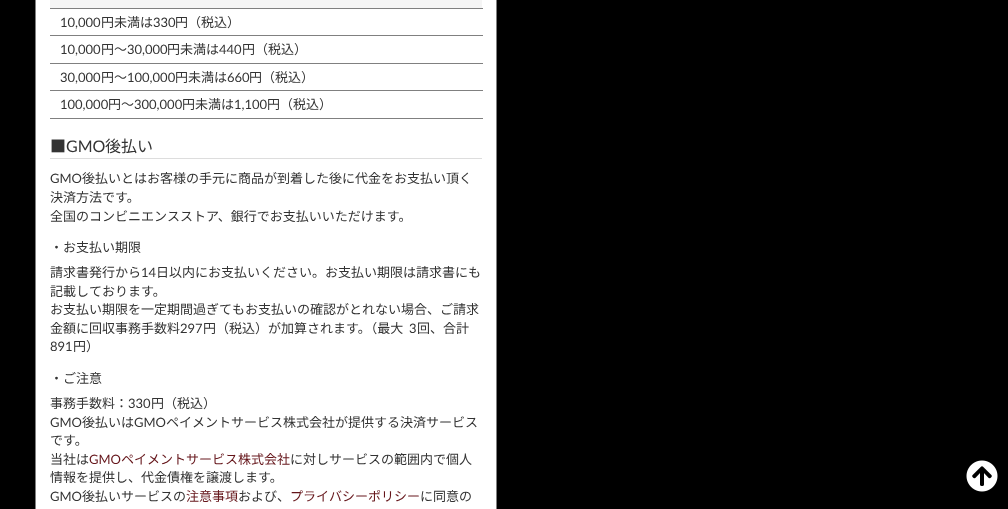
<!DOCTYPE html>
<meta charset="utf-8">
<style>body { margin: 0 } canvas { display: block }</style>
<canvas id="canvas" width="1008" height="509"></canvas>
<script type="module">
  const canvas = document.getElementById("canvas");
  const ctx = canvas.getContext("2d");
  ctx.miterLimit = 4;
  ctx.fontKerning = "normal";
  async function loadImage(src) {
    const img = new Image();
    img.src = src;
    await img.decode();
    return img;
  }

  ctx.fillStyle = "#000000";
  ctx.fillRect(0, 0, 1008, 509);
  ctx.fillStyle = "#ffffff";
  ctx.beginPath();
  ctx.rect(35.5, -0.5, 461, 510);
  ctx.fill();
  ctx.strokeStyle = "#808080";
  ctx.stroke();
  ctx.fillStyle = "#f5f5f5";
  ctx.fillRect(50, 0, 432, 8);
  ctx.fillStyle = "#808080";
  ctx.fillRect(50, 8, 433, 1);
  ctx.font = "13px Lato";
  ctx.fillStyle = "#333333";
  ctx.fillText("10,000", 60, 27);
  ctx.font = "13px Noto Sans JP";
  ctx.fillText("円未満は", 101, 27);
  ctx.font = "13px Lato";
  ctx.fillText("330", 153, 27);
  ctx.font = "13px Noto Sans JP";
  ctx.fillText("円（税込）", 175, 27);
  ctx.fillStyle = "#808080";
  ctx.fillRect(50, 35, 433, 1);
  ctx.font = "13px Lato";
  ctx.fillStyle = "#333333";
  ctx.fillText("10,000", 60, 54);
  ctx.font = "13px Noto Sans JP";
  ctx.fillText("円～", 101, 54);
  ctx.font = "13px Lato";
  ctx.fillText("30,000", 127, 54);
  ctx.font = "13px Noto Sans JP";
  ctx.fillText("円未満は", 167, 54);
  ctx.font = "13px Lato";
  ctx.fillText("440", 219, 54);
  ctx.font = "13px Noto Sans JP";
  ctx.fillText("円（税込）", 242, 54);
  ctx.fillStyle = "#808080";
  ctx.fillRect(50, 63, 433, 1);
  ctx.font = "13px Lato";
  ctx.fillStyle = "#333333";
  ctx.fillText("30,000", 60, 82);
  ctx.font = "13px Noto Sans JP";
  ctx.fillText("円～", 101, 82);
  ctx.font = "13px Lato";
  ctx.fillText("100,000", 127, 82);
  ctx.font = "13px Noto Sans JP";
  ctx.fillText("円未満は", 175, 82);
  ctx.font = "13px Lato";
  ctx.fillText("660", 227, 82);
  ctx.font = "13px Noto Sans JP";
  ctx.fillText("円（税込）", 249, 82);
  ctx.fillStyle = "#808080";
  ctx.fillRect(50, 90, 433, 1);
  ctx.fillRect(50, 118, 433, 1);
  ctx.font = "13px Lato";
  ctx.fillStyle = "#333333";
  ctx.fillText("100,000", 60, 109);
  ctx.font = "13px Noto Sans JP";
  ctx.fillText("円～", 108, 109);
  ctx.font = "13px Lato";
  ctx.fillText("300,000", 134, 109);
  ctx.font = "13px Noto Sans JP";
  ctx.fillText("円未満は", 182, 109);
  ctx.font = "13px Lato";
  ctx.fillText("1,100", 234, 109);
  ctx.font = "13px Noto Sans JP";
  ctx.fillText("円（税込）", 267, 109);
  ctx.fillStyle = "#dddddd";
  ctx.fillRect(50, 158, 432, 1);
  ctx.font = "16px Noto Sans JP";
  ctx.fillStyle = "#333333";
  ctx.fillText("■", 50, 152);
  ctx.font = "16px Lato";
  ctx.fillText("GMO", 66, 152);
  ctx.font = "16px Noto Sans JP";
  ctx.fillText("後払い", 105, 152);
  ctx.font = "13px Lato";
  ctx.fillText("GMO", 50, 183);
  ctx.font = "13px Noto Sans JP";
  ctx.fillText("後払いとはお客様の手元に商品が到着した後に代金をお支払い頂く", 82, 183);
  ctx.fillText("決済方法です。", 50, 202);
  ctx.fillText("全国のコンビニエンスストア、銀行でお支払いいただけます。", 50, 221);
  ctx.fillText("・お支払い期限", 50, 252);
  ctx.fillText("請求書発行から", 50, 277);
  ctx.font = "13px Lato";
  ctx.fillText("14", 141, 277);
  ctx.font = "13px Noto Sans JP";
  ctx.fillText("日以内にお支払いください。お支払い期限は請求書にも", 156, 277);
  ctx.fillText("記載しております。", 50, 296);
  ctx.fillText("お支払い期限を一定期間過ぎてもお支払いの確認がとれない場合、ご請求", 50, 314);
  ctx.fillText("金額に回収事務手数料", 50, 333);
  ctx.font = "13px Lato";
  ctx.fillText("297", 180, 333);
  ctx.font = "13px Noto Sans JP";
  ctx.fillText("円（税込）が加算されます。（最大", 203, 333);
  ctx.font = "13px Lato";
  ctx.fillText("3", 409, 333);
  ctx.font = "13px Noto Sans JP";
  ctx.fillText("回、合計", 417, 333);
  ctx.font = "13px Lato";
  ctx.fillText("891", 50, 351);
  ctx.font = "13px Noto Sans JP";
  ctx.fillText("円）", 73, 351);
  ctx.fillText("・ご注意", 50, 383);
  ctx.fillText("事務手数料：", 50, 408);
  ctx.font = "13px Lato";
  ctx.fillText("330", 128, 408);
  ctx.font = "13px Noto Sans JP";
  ctx.fillText("円（税込）", 151, 408);
  ctx.font = "13px Lato";
  ctx.fillText("GMO", 50, 427);
  ctx.font = "13px Noto Sans JP";
  ctx.fillText("後払いは", 82, 427);
  ctx.font = "13px Lato";
  ctx.fillText("GMO", 134, 427);
  ctx.font = "13px Noto Sans JP";
  ctx.fillText("ペイメントサービス株式会社が提供する決済サービス", 166, 427);
  ctx.fillText("です。", 50, 445);
  ctx.fillText("当社は", 50, 464);
  ctx.font = "13px Lato";
  ctx.fillStyle = "#641419";
  ctx.fillText("GMO", 89, 464);
  ctx.font = "13px Noto Sans JP";
  ctx.fillText("ペイメントサービス株式会社", 121, 464);
  ctx.fillStyle = "#333333";
  ctx.fillText("に対しサービスの範囲内で個人", 290, 464);
  ctx.fillText("情報を提供し、代金債権を譲渡します。", 50, 482);
  ctx.font = "13px Lato";
  ctx.fillText("GMO", 50, 501);
  ctx.font = "13px Noto Sans JP";
  ctx.fillText("後払いサービスの", 82, 501);
  ctx.fillStyle = "#641419";
  ctx.fillText("注意事項", 186, 501);
  ctx.fillStyle = "#333333";
  ctx.fillText("および、", 238, 501);
  ctx.fillStyle = "#641419";
  ctx.fillText("プライバシーポリシー", 290, 501);
  ctx.fillStyle = "#333333";
  ctx.fillText("に同意の", 420, 501);
  ctx.drawImage(await loadImage("img1.png"), 966, 460, 32, 32);
</script>
